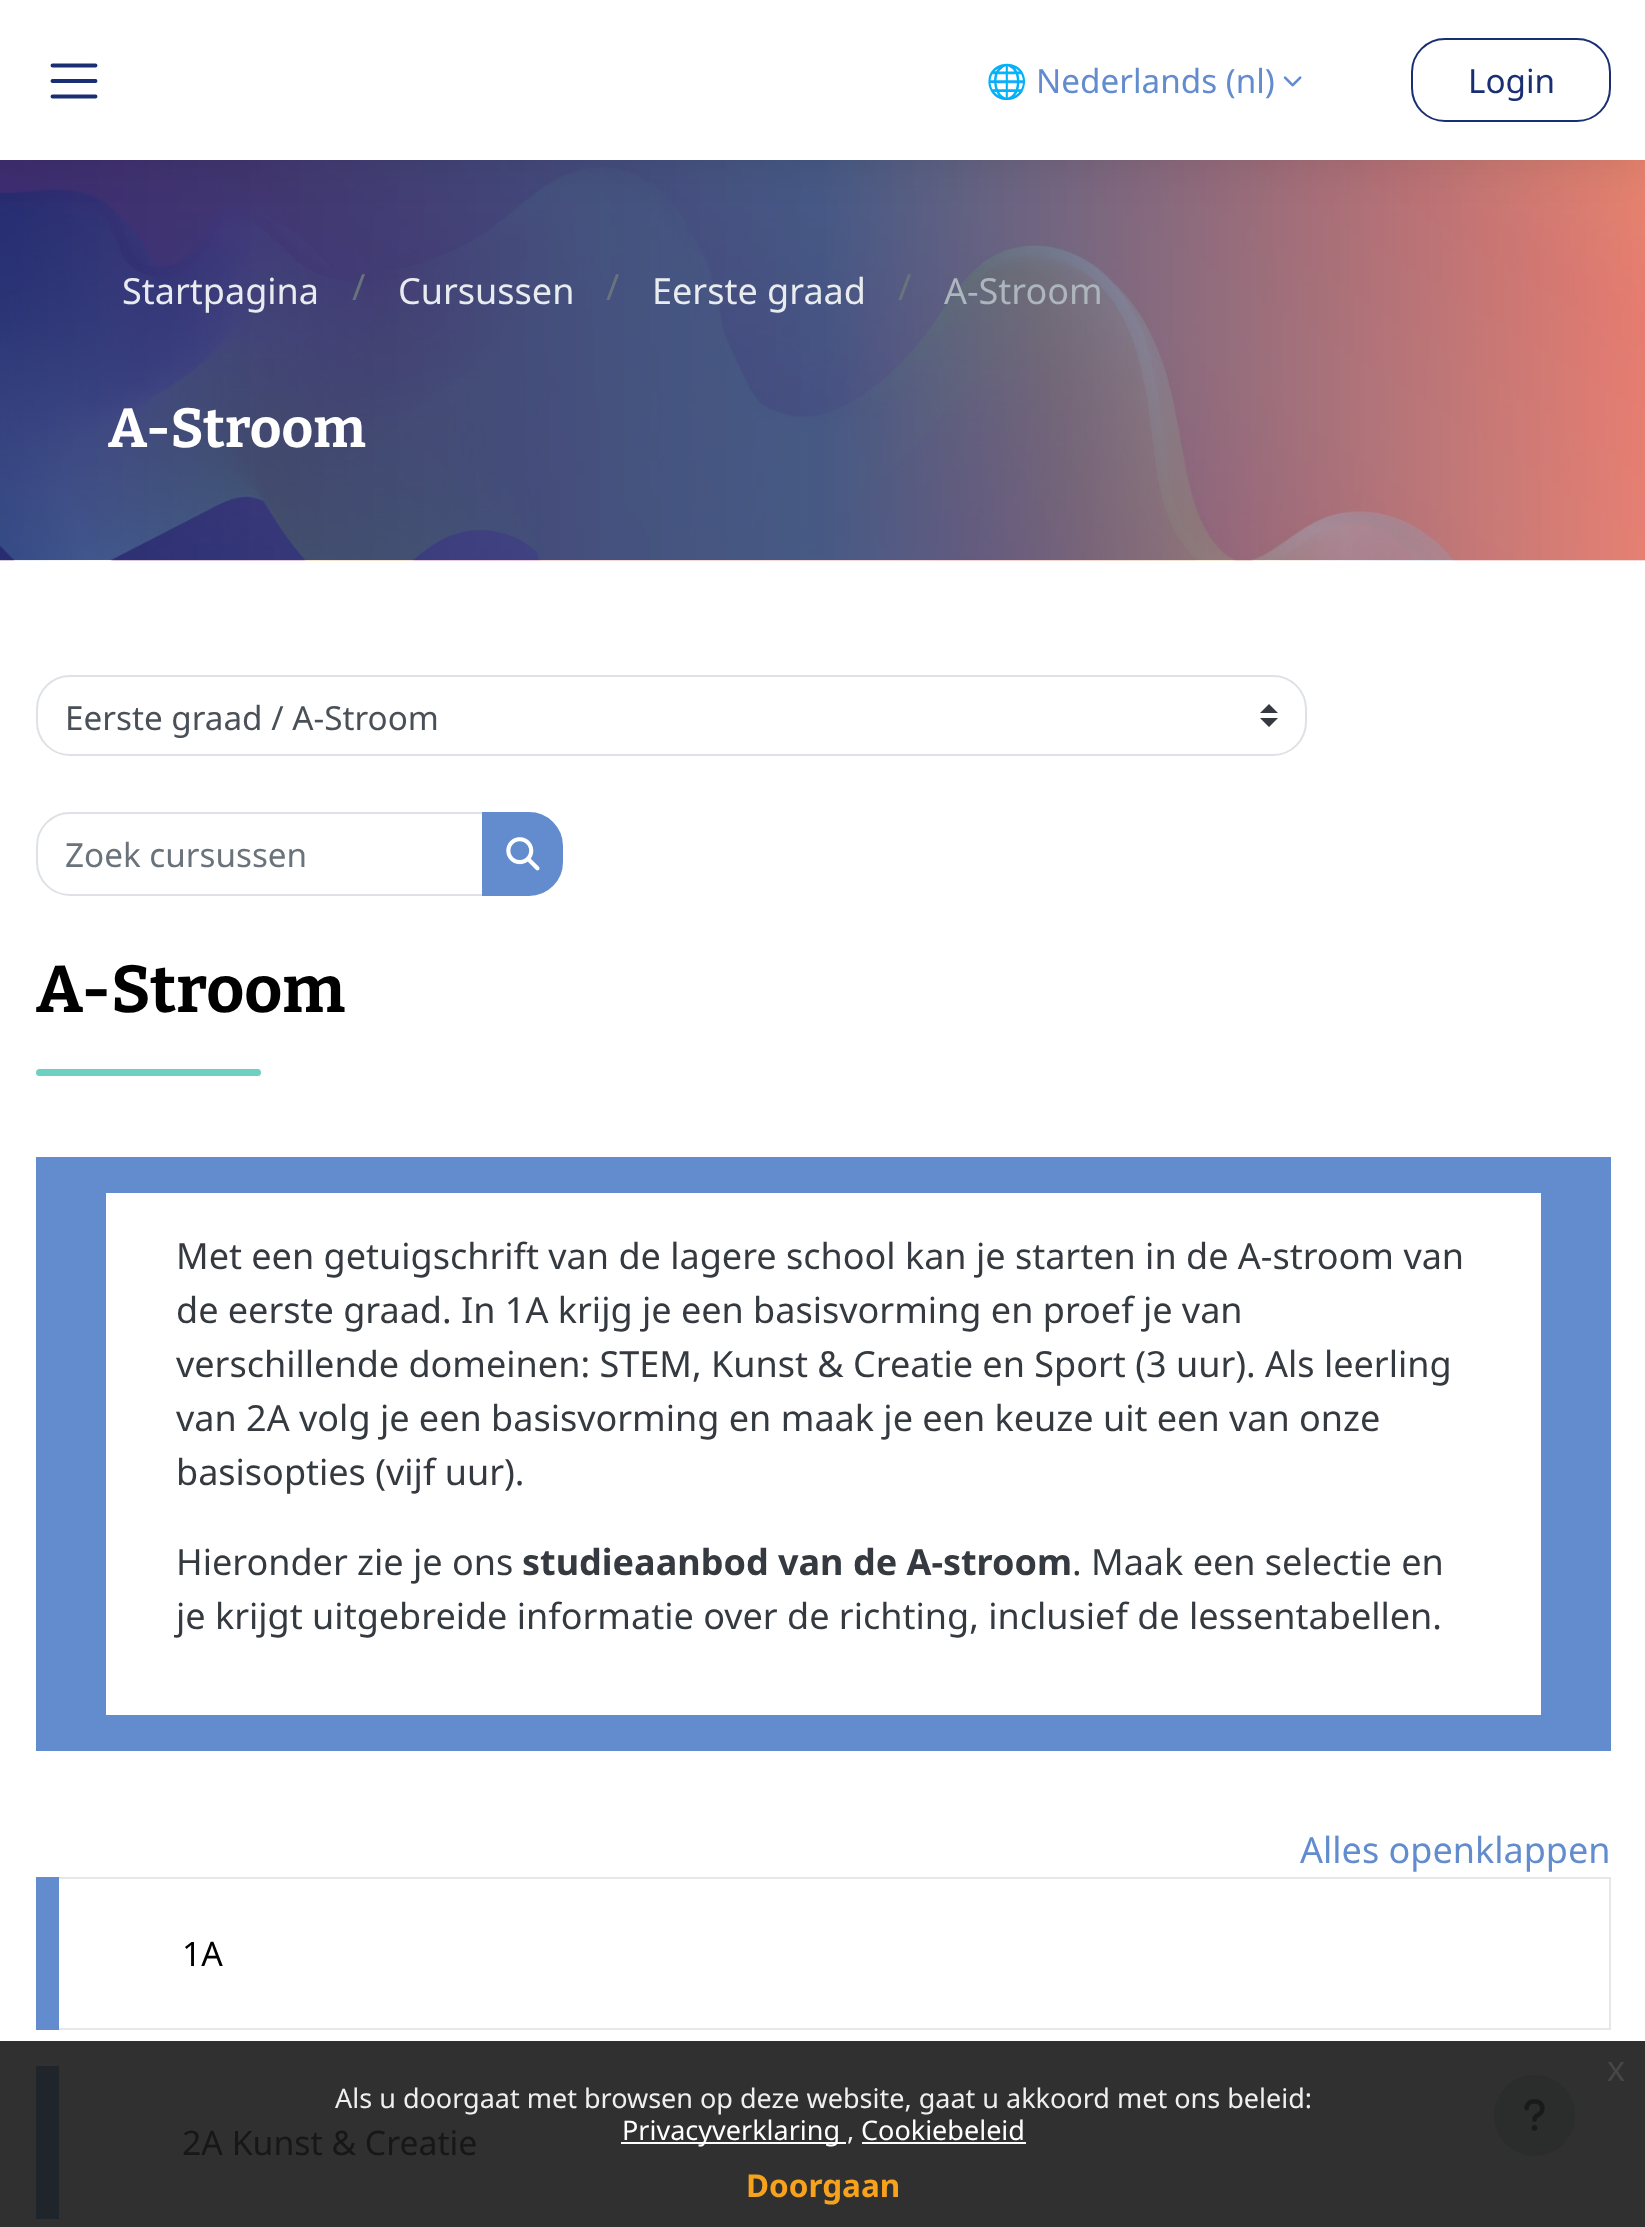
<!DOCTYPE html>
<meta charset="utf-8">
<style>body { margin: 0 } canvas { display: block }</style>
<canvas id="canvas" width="1645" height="2227"></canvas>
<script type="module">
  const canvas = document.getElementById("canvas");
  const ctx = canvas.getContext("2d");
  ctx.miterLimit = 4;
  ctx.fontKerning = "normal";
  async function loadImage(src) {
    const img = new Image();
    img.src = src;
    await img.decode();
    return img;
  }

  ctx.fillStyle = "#ffffff";
  ctx.fillRect(0, 0, 1645, 2227);
  ctx.fillStyle = "#303030";
  ctx.fillRect(0, 2041, 1645, 186);
  ctx.drawImage(await loadImage("img2.png"), 0, 160, 1645, 401);
  ctx.fillStyle = "rgba(0, 0, 0, 0.1)";
  ctx.filter = "blur(22.5px)";
  ctx.beginPath();
  ctx.rect(0, 0, 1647, 160);
  ctx.fill();
  ctx.filter = "none";
  ctx.fillStyle = "#ffffff";
  ctx.fillRect(0, 0, 1645, 160);
  ctx.beginPath();
  ctx.moveTo(52.5, 65.5);
  ctx.lineTo(95.5, 65.5);
  ctx.moveTo(52.5, 81);
  ctx.lineTo(95.5, 81);
  ctx.moveTo(52.5, 96.5);
  ctx.lineTo(95.5, 96.5);
  ctx.strokeStyle = "#1a2f72";
  ctx.lineWidth = 3.9;
  ctx.lineCap = "round";
  ctx.stroke();
  ctx.font = "33.25px Noto Color Emoji";
  ctx.fillStyle = "#628cce";
  ctx.fillText("🌐", 986, 93);
  ctx.font = "33.25px Noto Sans";
  ctx.fillText("Nederlands (nl)", 1036, 93);
  ctx.drawImage(await loadImage("img1.png"), 1283, 76, 19, 11);
  ctx.beginPath();
  ctx.roundRect(1412, 39, 198, 82, 33);
  ctx.lineWidth = 2;
  ctx.stroke();
  ctx.fillStyle = "#1a2f72";
  ctx.fillText("Login", 1468, 93);
  ctx.font = "36px Noto Sans";
  ctx.fillStyle = "#e9ecef";
  ctx.fillText("Startpagina", 122, 304);
  ctx.fillStyle = "#6a737b";
  ctx.fillText("/", 352, 300);
  ctx.fillStyle = "#e9ecef";
  ctx.fillText("Cursussen", 398, 304);
  ctx.fillStyle = "#6a737b";
  ctx.fillText("/", 606, 300);
  ctx.fillStyle = "#e9ecef";
  ctx.fillText("Eerste graad", 652, 304);
  ctx.fillStyle = "#6a737b";
  ctx.fillText("/", 898, 300);
  ctx.fillStyle = "#adb5bd";
  ctx.fillText("A-Stroom", 944, 304);
  ctx.font = "bold 55px Bitter";
  ctx.fillStyle = "#ffffff";
  ctx.fillText("A-Stroom", 108, 447);
  ctx.fillStyle = "#343a40";
  ctx.beginPath();
  ctx.moveTo(1269, 704);
  ctx.lineTo(1260, 713);
  ctx.lineTo(1278, 713);
  ctx.closePath();
  ctx.moveTo(1269, 727);
  ctx.lineTo(1260, 718);
  ctx.lineTo(1278, 718);
  ctx.closePath();
  ctx.fill();
  ctx.beginPath();
  ctx.roundRect(37, 676, 1269, 79, 33);
  ctx.strokeStyle = "#dee2e6";
  ctx.stroke();
  ctx.font = "33.25px Noto Sans";
  ctx.fillStyle = "#495057";
  ctx.fillText("Eerste graad / A-Stroom", 65, 730);
  ctx.beginPath();
  ctx.roundRect(37, 813, 446, 82, [33, 0, 0, 33]);
  ctx.stroke();
  ctx.fillStyle = "#6a737b";
  ctx.fillText("Zoek cursussen", 65, 867);
  ctx.fillStyle = "#628cce";
  ctx.beginPath();
  ctx.roundRect(483, 813, 79, 82, [0, 33, 33, 0]);
  ctx.fill();
  ctx.strokeStyle = "#628cce";
  ctx.stroke();
  ctx.drawImage(await loadImage("img3.png"), 506, 837, 34, 34);
  ctx.font = "bold 66px Bitter";
  ctx.fillStyle = "#000000";
  ctx.fillText("A-Stroom", 36, 1012);
  ctx.fillStyle = "#6dd0c0";
  ctx.beginPath();
  ctx.roundRect(36, 1069, 225, 7, 3.5);
  ctx.fill();
  ctx.fillStyle = "#628cce";
  ctx.fillRect(36, 1157, 1575, 594);
  ctx.fillStyle = "#ffffff";
  ctx.fillRect(106, 1193, 1435, 522);
  ctx.font = "36px Noto Sans";
  ctx.fillStyle = "#343a40";
  ctx.fillText("Met een getuigschrift van de lagere school kan je starten in de A-stroom van", 176, 1269);
  ctx.fillText("de eerste graad. In 1A krijg je een basisvorming en proef je van", 176, 1323);
  ctx.fillText("verschillende domeinen: STEM, Kunst & Creatie en Sport (3 uur). Als leerling", 176, 1377);
  ctx.fillText("van 2A volg je een basisvorming en maak je een keuze uit een van onze", 176, 1431);
  ctx.fillText("basisopties (vijf uur).", 176, 1485);
  ctx.fillText("Hieronder zie je ons", 176, 1575);
  ctx.font = "bold 36px Noto Sans";
  ctx.fillText("studieaanbod van de A-stroom", 522, 1575);
  ctx.font = "36px Noto Sans";
  ctx.fillText(". Maak een selectie en", 1072, 1575);
  ctx.fillText("je krijgt uitgebreide informatie over de richting, inclusief de lessentabellen.", 176, 1629);
  ctx.fillStyle = "#628cce";
  ctx.fillText("Alles openklappen", 1300, 1863);
  ctx.strokeStyle = "#e7e7e7";
  ctx.strokeRect(37, 1878, 1573, 151);
  ctx.fillRect(36, 1877, 23, 153);
  ctx.font = "33.75px Noto Sans";
  ctx.fillStyle = "#000000";
  ctx.fillText("1A", 182, 1966);
  ctx.fillStyle = "#20252b";
  ctx.fillRect(36, 2066, 23, 153);
  ctx.fillStyle = "#171717";
  ctx.fillText("2A Kunst & Creatie", 182, 2155);
  ctx.fillStyle = "#2b2c2c";
  ctx.beginPath();
  ctx.arc(1534.5, 2115.5, 40.5, 0, Math.PI * 2);
  ctx.fill();
  ctx.drawImage(await loadImage("img4.png"), 1524, 2099, 21, 32);
  ctx.font = "36px Liberation Sans";
  ctx.fillStyle = "#474747";
  ctx.fillText("x", 1607, 2081);
  ctx.font = "27px Noto Sans";
  ctx.fillStyle = "#efefef";
  ctx.fillText("Als u doorgaat met browsen op deze website, gaat u akkoord met ons beleid:", 335, 2108);
  ctx.fillStyle = "#ffffff";
  ctx.fillRect(621, 2142, 225, 2);
  ctx.fillText("Privacyverklaring", 622, 2140);
  ctx.fillStyle = "#efefef";
  ctx.fillText(",", 847, 2140);
  ctx.fillStyle = "#ffffff";
  ctx.fillRect(862, 2142, 164, 2);
  ctx.fillText("Cookiebeleid", 861, 2140);
  ctx.font = "bold 31.5px Noto Sans";
  ctx.fillStyle = "#f6a21d";
  ctx.fillText("Doorgaan", 746, 2197);
</script>
